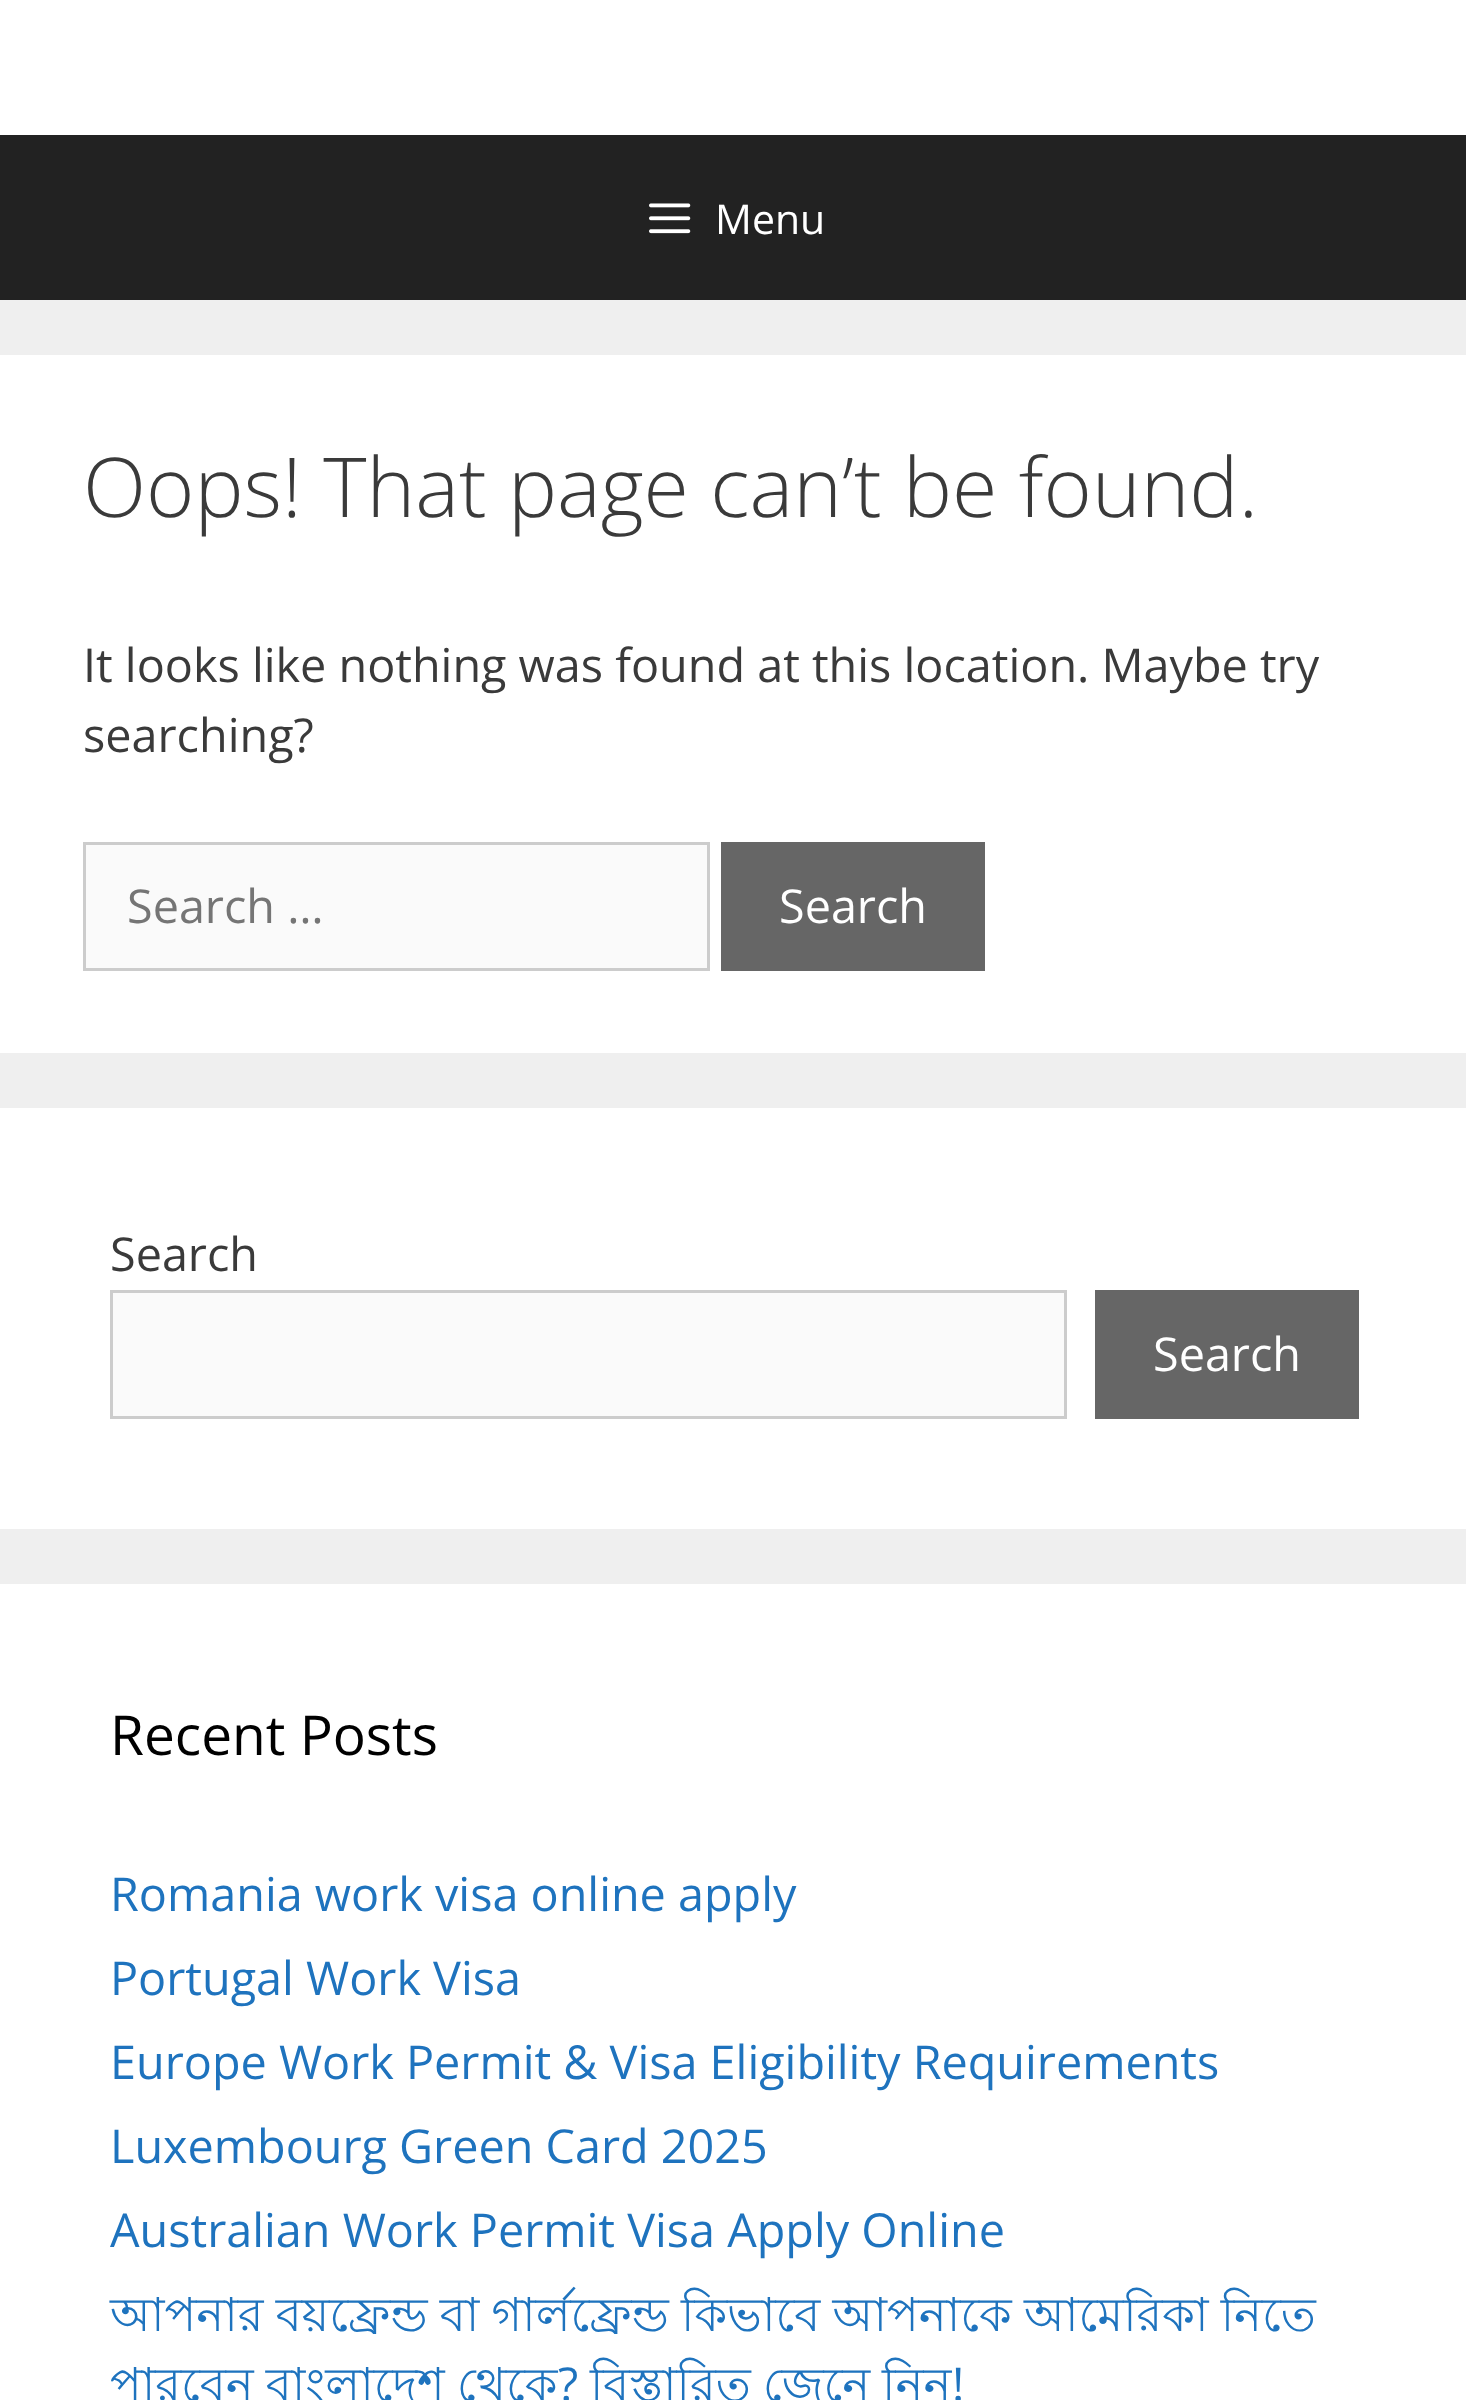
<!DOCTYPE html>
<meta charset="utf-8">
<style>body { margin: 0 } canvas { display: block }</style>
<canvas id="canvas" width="1466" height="2400"></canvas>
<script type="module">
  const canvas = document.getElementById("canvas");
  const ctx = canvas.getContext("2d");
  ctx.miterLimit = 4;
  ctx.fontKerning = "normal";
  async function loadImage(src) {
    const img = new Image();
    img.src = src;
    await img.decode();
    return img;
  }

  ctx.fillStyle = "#efefef";
  ctx.fillRect(0, 0, 1466, 2400);
  ctx.fillStyle = "#ffffff";
  ctx.fillRect(0, 0, 1466, 135);
  ctx.fillStyle = "#222222";
  ctx.fillRect(0, 135, 1466, 165);
  ctx.drawImage(await loadImage("img1.png"), 649, 203, 42, 31);
  ctx.font = "41px Open Sans";
  ctx.fillStyle = "#ffffff";
  ctx.fillText("Menu", 715, 234);
  ctx.fillRect(0, 355, 1466, 698);
  ctx.font = "300 82.5px Open Sans";
  ctx.fillStyle = "#3a3a3a";
  ctx.fillText("Oops! That page can’t be found.", 83, 517);
  ctx.font = "46.75px Open Sans";
  ctx.fillText("It looks like nothing was found at this location. Maybe try", 83, 682);
  ctx.fillText("searching?", 83, 752);
  ctx.fillStyle = "#fafafa";
  ctx.beginPath();
  ctx.rect(84.5, 843.5, 624, 126);
  ctx.fill();
  ctx.strokeStyle = "#cccccc";
  ctx.lineWidth = 3;
  ctx.stroke();
  ctx.fillStyle = "#757575";
  ctx.fillText("Search …", 127, 923);
  ctx.fillStyle = "#666666";
  ctx.fillRect(721, 842, 264, 129);
  ctx.fillStyle = "#ffffff";
  ctx.fillText("Search", 779, 923);
  ctx.fillRect(0, 1108, 1466, 421);
  ctx.fillStyle = "#3a3a3a";
  ctx.fillText("Search", 110, 1271);
  ctx.fillStyle = "#fafafa";
  ctx.beginPath();
  ctx.rect(111.5, 1291.5, 954, 126);
  ctx.fill();
  ctx.stroke();
  ctx.fillStyle = "#666666";
  ctx.fillRect(1095, 1290, 264, 129);
  ctx.fillStyle = "#ffffff";
  ctx.fillText("Search", 1153, 1371);
  ctx.fillRect(0, 1584, 1466, 816);
  ctx.font = "55px Open Sans";
  ctx.fillStyle = "#000000";
  ctx.fillText("Recent Posts", 110, 1755);
  ctx.font = "46.75px Open Sans";
  ctx.fillStyle = "#1e73be";
  ctx.fillText("Romania work visa online apply", 110, 1911);
  ctx.fillText("Portugal Work Visa", 110, 1995);
  ctx.fillText("Europe Work Permit & Visa Eligibility Requirements", 110, 2079);
  ctx.fillText("Luxembourg Green Card 2025", 110, 2163);
  ctx.fillText("Australian Work Permit Visa Apply Online", 110, 2247);
  ctx.wordSpacing = "-0.75px";
  ctx.font = "46.75px Lohit Bengali";
  ctx.fillText("আপনার বয়ফ্রেন্ড বা গার্লফ্রেন্ড কিভাবে আপনাকে আমেরিকা নিতে", 110, 2331);
  ctx.wordSpacing = "-1px";
  ctx.fillText("পারবেন বাংলাদেশ থেকে", 110, 2401);
  ctx.wordSpacing = "0px";
  ctx.font = "46.75px Open Sans";
  ctx.fillText("?", 558, 2401);
  ctx.wordSpacing = "-1px";
  ctx.font = "46.75px Lohit Bengali";
  ctx.fillText("বিস্তারিত জেনে নিন", 590, 2401);
  ctx.wordSpacing = "0px";
  ctx.font = "46.75px Open Sans";
  ctx.fillText("!", 952, 2401);
</script>
